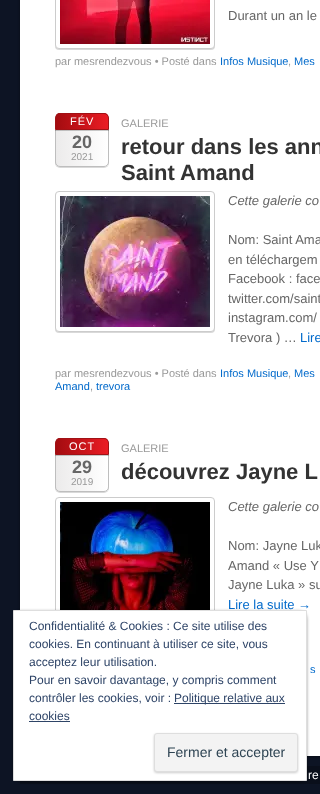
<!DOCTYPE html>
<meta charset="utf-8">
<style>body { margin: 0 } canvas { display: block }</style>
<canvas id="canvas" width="320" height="794"></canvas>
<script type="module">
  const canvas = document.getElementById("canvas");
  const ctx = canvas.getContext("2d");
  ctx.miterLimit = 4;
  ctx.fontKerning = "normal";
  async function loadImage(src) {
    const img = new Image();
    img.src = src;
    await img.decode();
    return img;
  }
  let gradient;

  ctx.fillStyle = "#0d1424";
  ctx.fillRect(0, 0, 320, 794);
  ctx.fillStyle = "rgba(0, 0, 0, 0.4)";
  ctx.filter = "blur(1.5px)";
  ctx.beginPath();
  ctx.roundRect(20, -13, 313, 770, 8);
  ctx.fill();
  ctx.filter = "none";
  ctx.fillStyle = "#ffffff";
  ctx.fillRect(20, 0, 300, 756);
  ctx.fillStyle = "rgba(0, 0, 0, 0.15)";
  ctx.filter = "blur(0.5px)";
  ctx.beginPath();
  ctx.roundRect(55, -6, 160, 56, 4);
  ctx.fill();
  ctx.filter = "none";
  ctx.fillStyle = "#ffffff";
  ctx.beginPath();
  ctx.roundRect(55.5, -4.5, 159, 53, 3.5);
  ctx.fill();
  ctx.strokeStyle = "#cccccc";
  ctx.stroke();
  ctx.drawImage(await loadImage("img1.png"), 60, 0, 150, 44);
  ctx.font = "13px Liberation Sans";
  ctx.fillStyle = "#666666";
  ctx.fillText("Durant un an le", 228, 20);
  ctx.font = "11px Liberation Sans";
  ctx.fillStyle = "#999999";
  ctx.fillText("par mesrendezvous • Posté dans", 55, 65);
  ctx.fillStyle = "#026acb";
  ctx.fillText("Infos Musique", 220, 65);
  ctx.fillStyle = "#999999";
  ctx.fillText(",", 288, 65);
  ctx.fillStyle = "#026acb";
  ctx.fillText("Mes", 294, 65);
  ctx.fillStyle = "rgba(0, 0, 0, 0.15)";
  ctx.filter = "blur(0.5px)";
  ctx.beginPath();
  ctx.roundRect(55, 114, 54, 54, 5);
  ctx.fill();
  ctx.filter = "none";
  ctx.save();
  ctx.beginPath();
  ctx.roundRect(55, 113, 54, 54, 5);
  ctx.clip();
  gradient = ctx.createLinearGradient(108, 140, 56, 140);
  gradient.addColorStop(0, "#ffffff");
  gradient.addColorStop(1, "#ecebeb");
  ctx.fillStyle = gradient;
  ctx.fillRect(56, 113, 52, 54);
  ctx.restore();
  ctx.beginPath();
  ctx.roundRect(55.5, 113.5, 53, 53, 4.5);
  ctx.strokeStyle = "#bebebe";
  ctx.stroke();
  ctx.fillStyle = "rgba(0, 0, 0, 0.2)";
  ctx.fillRect(55, 130, 54, 1);
  ctx.save();
  ctx.beginPath();
  ctx.roundRect(55, 113, 54, 17, [5, 5, 0, 0]);
  ctx.clip();
  gradient = ctx.createLinearGradient(108, 122, 56, 122);
  gradient.addColorStop(0, "#eb1c24");
  gradient.addColorStop(1, "#a30c10");
  ctx.fillStyle = gradient;
  ctx.fillRect(56, 113, 52, 16);
  ctx.restore();
  ctx.beginPath();
  ctx.roundRect(55.5, 113.5, 53, 16, [4.5, 4.5, 0, 0]);
  ctx.strokeStyle = "#a11216";
  ctx.stroke();
  ctx.letterSpacing = "1px";
  ctx.fillStyle = "#ffffff";
  ctx.fillText("FÉV", 70, 125);
  ctx.letterSpacing = "0px";
  ctx.font = "bold 18px Liberation Sans";
  ctx.fillStyle = "#666666";
  ctx.fillText("20", 72, 148);
  ctx.font = "10px Liberation Sans";
  ctx.fillStyle = "#999999";
  ctx.fillText("2021", 71, 160);
  ctx.font = "11px Liberation Sans";
  ctx.fillText("GALERIE", 121, 127);
  ctx.font = "bold 22px Liberation Sans";
  ctx.fillStyle = "#333333";
  ctx.fillText("retour dans les ann", 121, 154);
  ctx.fillText("Saint Amand", 121, 180);
  ctx.fillStyle = "rgba(0, 0, 0, 0.15)";
  ctx.filter = "blur(0.5px)";
  ctx.beginPath();
  ctx.roundRect(55, 192, 160, 141, 4);
  ctx.fill();
  ctx.filter = "none";
  ctx.fillStyle = "#ffffff";
  ctx.beginPath();
  ctx.roundRect(55.5, 191.5, 159, 140, 3.5);
  ctx.fill();
  ctx.strokeStyle = "#cccccc";
  ctx.stroke();
  ctx.drawImage(await loadImage("img2.png"), 60, 196, 150, 131);
  ctx.font = "italic 13px Liberation Sans";
  ctx.fillStyle = "#666666";
  ctx.fillText("Cette galerie co", 228, 205);
  ctx.font = "13px Liberation Sans";
  ctx.fillText("Nom: Saint Ama", 228, 244);
  ctx.fillText("en téléchargem", 228, 264);
  ctx.fillText("Facebook : face", 228, 283);
  ctx.fillText("twitter.com/saint", 228, 303);
  ctx.fillText("instagram.com/", 228, 322);
  ctx.fillText("Trevora ) …", 228, 342);
  ctx.fillStyle = "#026acb";
  ctx.fillText("Lire", 300, 342);
  ctx.font = "11px Liberation Sans";
  ctx.fillStyle = "#999999";
  ctx.fillText("par mesrendezvous • Posté dans", 55, 377);
  ctx.fillStyle = "#026acb";
  ctx.fillText("Infos Musique", 220, 377);
  ctx.fillStyle = "#999999";
  ctx.fillText(",", 288, 377);
  ctx.fillStyle = "#026acb";
  ctx.fillText("Mes", 294, 377);
  ctx.fillText("Amand", 55, 390);
  ctx.fillStyle = "#999999";
  ctx.fillText(",", 90, 390);
  ctx.fillStyle = "#026acb";
  ctx.fillText("trevora", 96, 390);
  ctx.fillStyle = "rgba(0, 0, 0, 0.15)";
  ctx.filter = "blur(0.5px)";
  ctx.beginPath();
  ctx.roundRect(55, 439, 54, 54, 5);
  ctx.fill();
  ctx.filter = "none";
  ctx.save();
  ctx.beginPath();
  ctx.roundRect(55, 438, 54, 54, 5);
  ctx.clip();
  gradient = ctx.createLinearGradient(108, 465, 56, 465);
  gradient.addColorStop(0, "#ffffff");
  gradient.addColorStop(1, "#ecebeb");
  ctx.fillStyle = gradient;
  ctx.fillRect(56, 438, 52, 54);
  ctx.restore();
  ctx.beginPath();
  ctx.roundRect(55.5, 438.5, 53, 53, 4.5);
  ctx.strokeStyle = "#bebebe";
  ctx.stroke();
  ctx.fillStyle = "rgba(0, 0, 0, 0.2)";
  ctx.fillRect(55, 455, 54, 1);
  ctx.save();
  ctx.beginPath();
  ctx.roundRect(55, 438, 54, 17, [5, 5, 0, 0]);
  ctx.clip();
  gradient = ctx.createLinearGradient(108, 447, 56, 447);
  gradient.addColorStop(0, "#eb1c24");
  gradient.addColorStop(1, "#a30c10");
  ctx.fillStyle = gradient;
  ctx.fillRect(56, 438, 52, 16);
  ctx.restore();
  ctx.beginPath();
  ctx.roundRect(55.5, 438.5, 53, 16, [4.5, 4.5, 0, 0]);
  ctx.strokeStyle = "#a11216";
  ctx.stroke();
  ctx.letterSpacing = "1px";
  ctx.fillStyle = "#ffffff";
  ctx.fillText("OCT", 69, 450);
  ctx.letterSpacing = "0px";
  ctx.font = "bold 18px Liberation Sans";
  ctx.fillStyle = "#666666";
  ctx.fillText("29", 72, 473);
  ctx.font = "10px Liberation Sans";
  ctx.fillStyle = "#999999";
  ctx.fillText("2019", 71, 485);
  ctx.font = "11px Liberation Sans";
  ctx.fillText("GALERIE", 121, 452);
  ctx.font = "bold 22px Liberation Sans";
  ctx.fillStyle = "#333333";
  ctx.fillText("découvrez Jayne L", 121, 479);
  ctx.beginPath();
  ctx.roundRect(55.5, 497.5, 159, 159, 3.5);
  ctx.strokeStyle = "#cccccc";
  ctx.stroke();
  ctx.drawImage(await loadImage("img3.png"), 60, 502, 150, 108);
  ctx.font = "italic 13px Liberation Sans";
  ctx.fillStyle = "#666666";
  ctx.fillText("Cette galerie co", 228, 511);
  ctx.font = "13px Liberation Sans";
  ctx.fillText("Nom: Jayne Luk", 228, 550);
  ctx.fillText("Amand « Use Y", 228, 570);
  ctx.fillText("Jayne Luka » su", 228, 589);
  ctx.fillStyle = "#026acb";
  ctx.fillText("Lire la suite →", 228, 609);
  ctx.font = "11px Liberation Sans";
  ctx.fillText("s", 310, 673);
  ctx.fillStyle = "#0a0f1b";
  ctx.fillRect(20, 766, 300, 18);
  ctx.font = "12px Liberation Sans";
  ctx.fillStyle = "#ffffff";
  ctx.fillText("re", 308, 779);
  ctx.fillStyle = "rgba(0, 0, 0, 0.4)";
  ctx.filter = "blur(1.5px)";
  ctx.beginPath();
  ctx.roundRect(13, 611, 294, 171, 8);
  ctx.fill();
  ctx.filter = "none";
  ctx.fillStyle = "#ffffff";
  ctx.beginPath();
  ctx.rect(13.5, 610.5, 293, 170);
  ctx.fill();
  ctx.strokeStyle = "#dedede";
  ctx.stroke();
  ctx.fillStyle = "#2e4467";
  ctx.fillText("Confidentialité & Cookies : Ce site utilise des", 29, 630);
  ctx.fillText("cookies. En continuant à utiliser ce site, vous", 29, 648);
  ctx.fillText("acceptez leur utilisation.", 29, 666);
  ctx.fillText("Pour en savoir davantage, y compris comment", 29, 684);
  ctx.fillText("contrôler les cookies, voir :", 29, 702);
  ctx.fillRect(174, 703, 111, 1);
  ctx.fillText("Politique relative aux", 174, 702);
  ctx.fillText("cookies", 29, 720);
  ctx.fillRect(29, 721, 41, 1);
  ctx.fillStyle = "rgba(0, 0, 0, 0.2)";
  ctx.filter = "blur(1px)";
  ctx.beginPath();
  ctx.roundRect(154, 734, 144, 39, 3);
  ctx.fill();
  ctx.filter = "none";
  ctx.fillStyle = "#f3f3f3";
  ctx.beginPath();
  ctx.roundRect(154.5, 733.5, 143, 38, 2.5);
  ctx.fill();
  ctx.stroke();
  ctx.font = "14px Liberation Sans";
  ctx.fillStyle = "#2e4453";
  ctx.fillText("Fermer et accepter", 167, 757);
</script>
